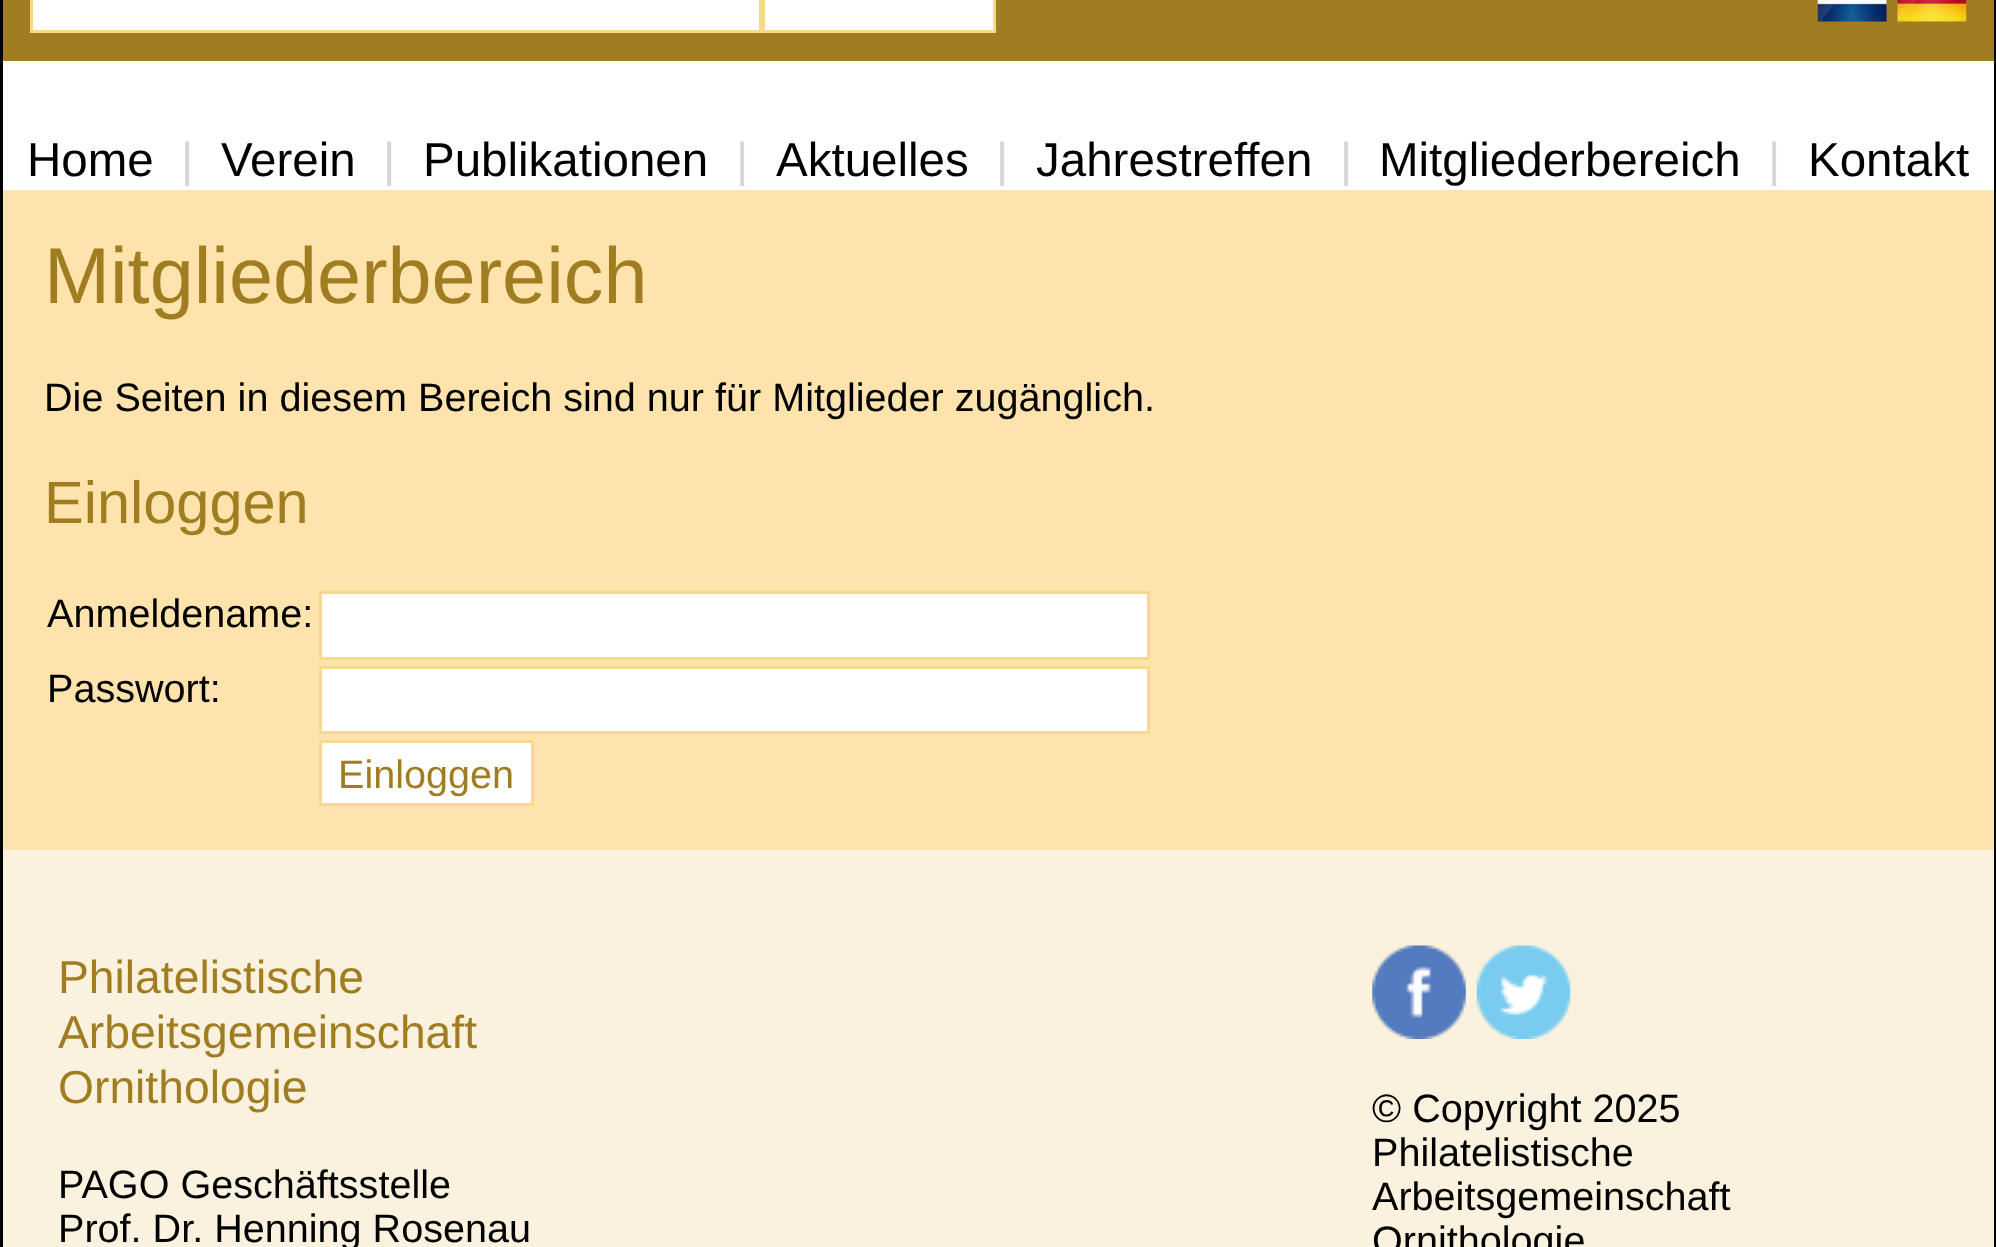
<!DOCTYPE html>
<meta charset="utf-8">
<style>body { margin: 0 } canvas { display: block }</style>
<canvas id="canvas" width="1996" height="1247"></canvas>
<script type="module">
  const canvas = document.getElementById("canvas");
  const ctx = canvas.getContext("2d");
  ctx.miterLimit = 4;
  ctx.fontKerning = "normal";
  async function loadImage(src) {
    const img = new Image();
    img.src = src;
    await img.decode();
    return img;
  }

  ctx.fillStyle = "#a17d22";
  ctx.fillRect(0, 0, 1996, 1247);
  ctx.fillStyle = "#000000";
  ctx.fillRect(1994, 0, 2, 1247);
  ctx.fillRect(0, 0, 3, 1247);
  ctx.fillStyle = "#ffffff";
  ctx.beginPath();
  ctx.rect(31.5, -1.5, 729, 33);
  ctx.fill();
  ctx.strokeStyle = "#f8d88b";
  ctx.lineWidth = 3;
  ctx.stroke();
  ctx.beginPath();
  ctx.rect(763.5, -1.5, 231, 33);
  ctx.fill();
  ctx.stroke();
  ctx.drawImage(await loadImage("img1.png"), 1817, 0, 70, 22);
  ctx.drawImage(await loadImage("img2.png"), 1897, 0, 70, 22);
  ctx.fillRect(3, 61, 1991, 129);
  ctx.font = "47.5px Liberation Sans";
  ctx.fillStyle = "#000000";
  ctx.fillText("Home", 27, 176);
  ctx.fillStyle = "#d6d6d6";
  ctx.fillText("|", 181, 176);
  ctx.fillStyle = "#000000";
  ctx.fillText("Verein", 221, 176);
  ctx.fillStyle = "#d6d6d6";
  ctx.fillText("|", 383, 176);
  ctx.fillStyle = "#000000";
  ctx.fillText("Publikationen", 423, 176);
  ctx.fillStyle = "#d6d6d6";
  ctx.fillText("|", 736, 176);
  ctx.fillStyle = "#000000";
  ctx.fillText("Aktuelles", 776, 176);
  ctx.fillStyle = "#d6d6d6";
  ctx.fillText("|", 996, 176);
  ctx.fillStyle = "#000000";
  ctx.fillText("Jahrestreffen", 1036, 176);
  ctx.fillStyle = "#d6d6d6";
  ctx.fillText("|", 1340, 176);
  ctx.fillStyle = "#000000";
  ctx.fillText("Mitgliederbereich", 1379, 176);
  ctx.fillStyle = "#d6d6d6";
  ctx.fillText("|", 1768, 176);
  ctx.fillStyle = "#000000";
  ctx.fillText("Kontakt", 1808, 176);
  ctx.fillStyle = "#fee3ac";
  ctx.fillRect(3, 190, 1991, 660);
  ctx.font = "79.25px Liberation Sans";
  ctx.fillStyle = "#a17d22";
  ctx.fillText("Mitgliederbereich", 44, 303);
  ctx.font = "39.6px Liberation Sans";
  ctx.fillStyle = "#000000";
  ctx.fillText("Die Seiten in diesem Bereich sind nur für Mitglieder zugänglich.", 44, 411);
  ctx.font = "59.5px Liberation Sans";
  ctx.fillStyle = "#a17d22";
  ctx.fillText("Einloggen", 44, 523);
  ctx.font = "39.6px Liberation Sans";
  ctx.fillStyle = "#000000";
  ctx.fillText("Anmeldename:", 47, 627);
  ctx.fillStyle = "#ffffff";
  ctx.beginPath();
  ctx.rect(320.5, 592.5, 828, 66);
  ctx.fill();
  ctx.stroke();
  ctx.fillStyle = "#000000";
  ctx.fillText("Passwort:", 47, 702);
  ctx.fillStyle = "#ffffff";
  ctx.beginPath();
  ctx.rect(320.5, 667.5, 828, 65);
  ctx.fill();
  ctx.stroke();
  ctx.beginPath();
  ctx.rect(320.5, 741.5, 212, 63);
  ctx.fill();
  ctx.stroke();
  ctx.fillStyle = "#a17d22";
  ctx.fillText("Einloggen", 338, 788);
  ctx.fillStyle = "#faf2de";
  ctx.fillRect(3, 850, 1991, 397);
  ctx.font = "46.25px Liberation Sans";
  ctx.fillStyle = "#a17d22";
  ctx.fillText("Philatelistische", 58, 993);
  ctx.fillText("Arbeitsgemeinschaft", 58, 1048);
  ctx.fillText("Ornithologie", 58, 1103);
  ctx.font = "39.6px Liberation Sans";
  ctx.fillStyle = "#000000";
  ctx.fillText("PAGO Geschäftsstelle", 58, 1198);
  ctx.fillText("Prof. Dr. Henning Rosenau", 58, 1242);
  ctx.drawImage(await loadImage("img3.png"), 1372, 945, 94, 94);
  ctx.drawImage(await loadImage("img4.png"), 1476, 945, 95, 94);
  ctx.fillText("© Copyright 2025", 1372, 1122);
  ctx.fillText("Philatelistische", 1372, 1166);
  ctx.fillText("Arbeitsgemeinschaft", 1372, 1210);
  ctx.fillText("Ornithologie", 1372, 1254);
</script>
